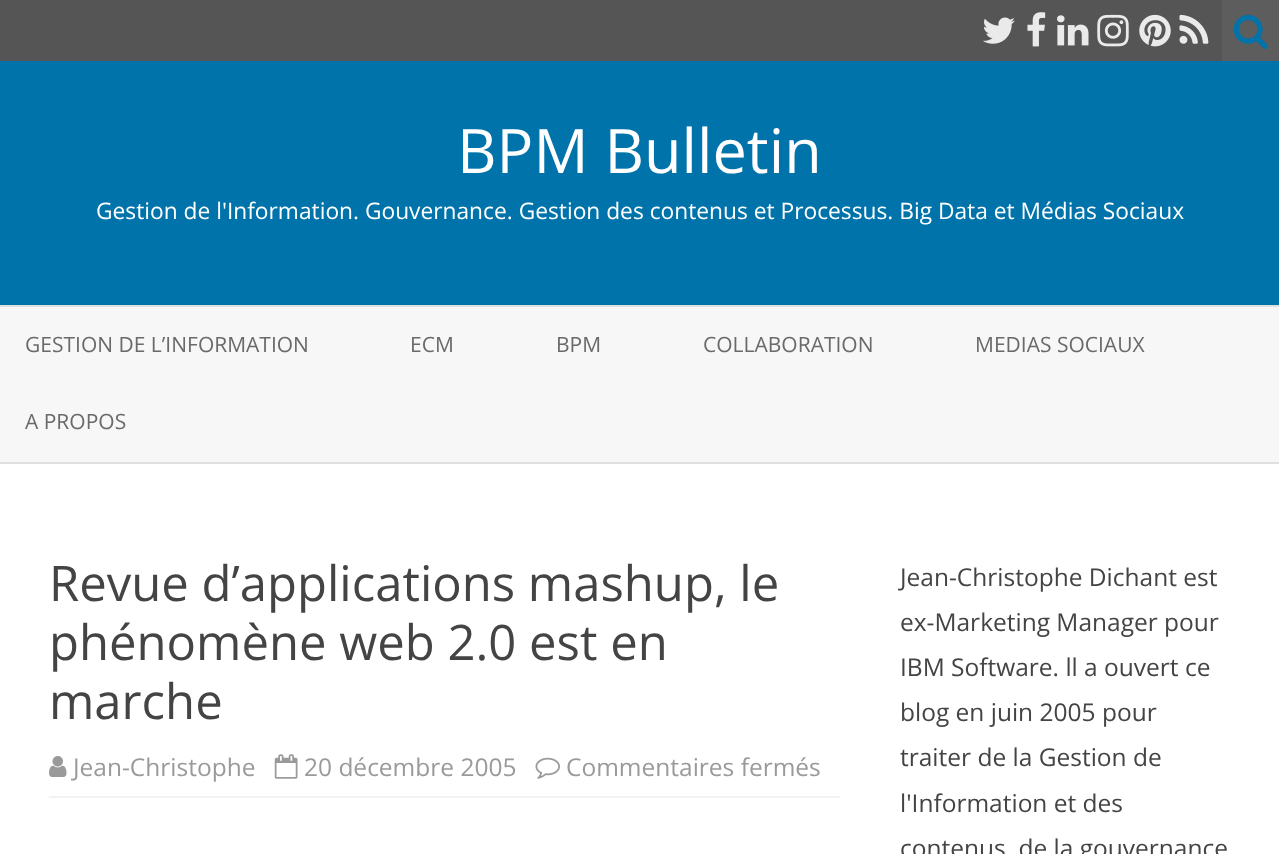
<!DOCTYPE html>
<meta charset="utf-8">
<style>body { margin: 0 } canvas { display: block }</style>
<canvas id="canvas" width="1279" height="854"></canvas>
<script type="module">
  const canvas = document.getElementById("canvas");
  const ctx = canvas.getContext("2d");
  ctx.miterLimit = 4;
  ctx.fontKerning = "normal";
  async function loadImage(src) {
    const img = new Image();
    img.src = src;
    await img.decode();
    return img;
  }

  ctx.fillStyle = "#ffffff";
  ctx.fillRect(0, 0, 1279, 854);
  ctx.fillStyle = "#555555";
  ctx.fillRect(0, 0, 1222, 61);
  ctx.drawImage(await loadImage("img1.png"), 983, 17, 32, 27);
  ctx.drawImage(await loadImage("img2.png"), 1027, 12, 19, 35);
  ctx.drawImage(await loadImage("img3.png"), 1057, 15, 32, 31);
  ctx.drawImage(await loadImage("img4.png"), 1097, 14, 32, 33);
  ctx.drawImage(await loadImage("img5.png"), 1139, 14, 32, 33);
  ctx.drawImage(await loadImage("img6.png"), 1179, 14, 30, 30);
  ctx.fillStyle = "#5d5d5d";
  ctx.fillRect(1222, 0, 57, 61);
  ctx.drawImage(await loadImage("img7.png"), 1233, 14, 35, 35);
  ctx.fillStyle = "#0073aa";
  ctx.fillRect(0, 61, 1279, 244);
  ctx.font = "61.25px Open Sans";
  ctx.fillStyle = "#ffffff";
  ctx.fillText("BPM Bulletin", 457, 173);
  ctx.font = "22.75px Open Sans";
  ctx.fillText("Gestion de l'Information. Gouvernance. Gestion des contenus et Processus. Big Data et Médias Sociaux", 96, 219);
  ctx.fillStyle = "#f7f7f7";
  ctx.fillRect(0, 307, 1279, 155);
  ctx.fillStyle = "#e0e0e0";
  ctx.fillRect(0, 305, 1279, 2);
  ctx.fillRect(0, 462, 1279, 2);
  ctx.font = "21px Open Sans";
  ctx.fillStyle = "#6a6a6a";
  ctx.fillText("GESTION DE L’INFORMATION", 25, 352);
  ctx.fillText("ECM", 410, 352);
  ctx.fillText("BPM", 556, 352);
  ctx.fillText("COLLABORATION", 703, 352);
  ctx.fillText("MEDIAS SOCIAUX", 975, 352);
  ctx.fillText("A PROPOS", 25, 429);
  ctx.font = "49px Open Sans";
  ctx.fillStyle = "#444444";
  ctx.fillText("Revue d’applications mashup, le", 49, 601);
  ctx.fillText("phénomène web 2.0 est en", 49, 660);
  ctx.fillText("marche", 49, 719);
  ctx.fillStyle = "#f2f2f2";
  ctx.fillRect(49, 796, 791, 2);
  ctx.drawImage(await loadImage("img8.png"), 49, 756, 18, 21);
  ctx.font = "24.5px Open Sans";
  ctx.fillStyle = "#9a9a9a";
  ctx.fillText("Jean-Christophe", 73, 776);
  ctx.drawImage(await loadImage("img9.png"), 274, 754, 24, 25);
  ctx.fillText("20 décembre 2005", 304, 776);
  ctx.drawImage(await loadImage("img10.png"), 535, 757, 25, 22);
  ctx.fillText("Commentaires fermés", 566, 776);
  ctx.fillStyle = "#444444";
  ctx.fillText("Jean-Christophe Dichant est", 900, 586);
  ctx.fillText("ex-Marketing Manager pour", 900, 631);
  ctx.fillText("IBM Software. ll a ouvert ce", 900, 676);
  ctx.fillText("blog en juin 2005 pour", 900, 721);
  ctx.fillText("traiter de la Gestion de", 900, 766);
  ctx.fillText("l'Information et des", 900, 812);
  ctx.fillText("contenus, de la gouvernance", 900, 857);
</script>
